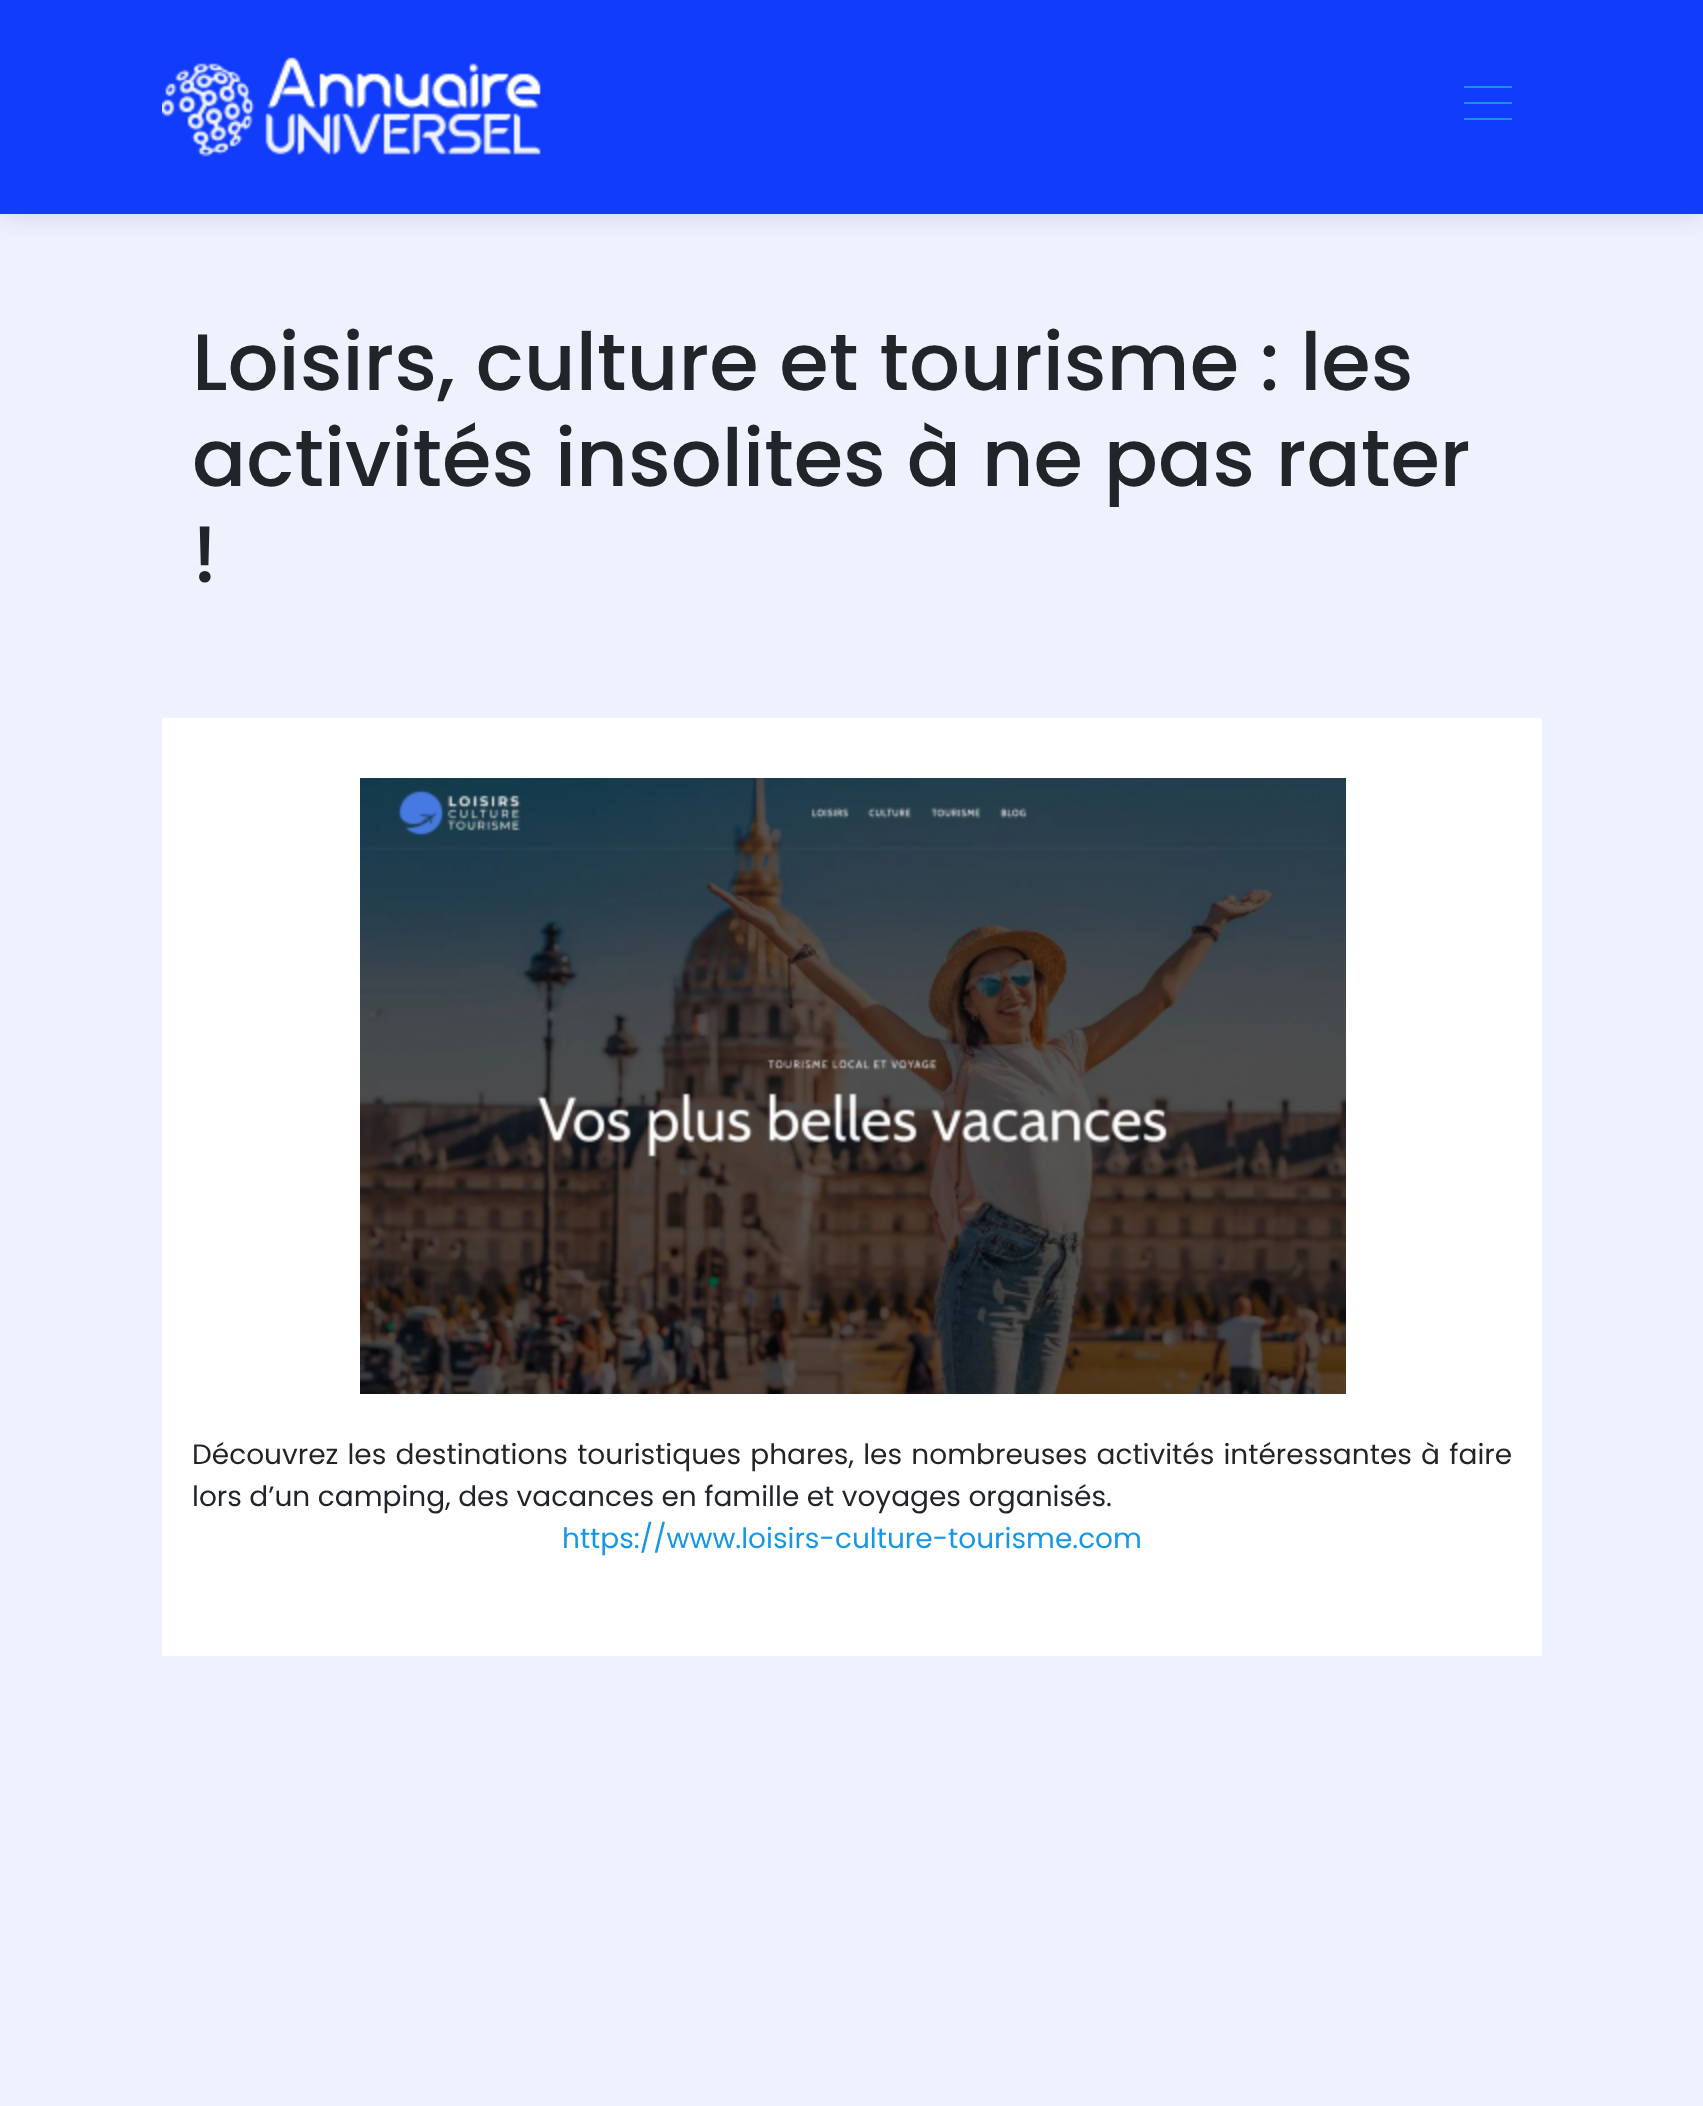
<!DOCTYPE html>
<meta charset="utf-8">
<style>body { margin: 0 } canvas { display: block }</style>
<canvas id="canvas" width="1703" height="2106"></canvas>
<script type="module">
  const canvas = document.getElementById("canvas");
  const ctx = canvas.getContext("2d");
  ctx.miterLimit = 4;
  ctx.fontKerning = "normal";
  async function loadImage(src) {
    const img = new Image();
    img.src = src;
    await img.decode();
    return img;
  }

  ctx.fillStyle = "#eef2ff";
  ctx.fillRect(0, 0, 1703, 2106);
  ctx.fillStyle = "rgba(0, 0, 0, 0.1)";
  ctx.filter = "blur(13px)";
  ctx.beginPath();
  ctx.rect(0, 4, 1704, 214);
  ctx.fill();
  ctx.filter = "none";
  ctx.fillStyle = "#113cfc";
  ctx.fillRect(0, 0, 1703, 214);
  ctx.drawImage(await loadImage("img1.png"), 162, 57, 379, 100);
  ctx.fillStyle = "#1597e5";
  ctx.fillRect(1464, 86, 48, 2);
  ctx.fillRect(1464, 102, 48, 2);
  ctx.fillRect(1464, 118, 48, 2);
  ctx.font = "500 80px Poppins";
  ctx.fillStyle = "#212529";
  ctx.fillText("Loisirs, culture et tourisme : les", 192, 390);
  ctx.fillText("activités insolites à ne pas rater", 192, 486);
  ctx.fillText("!", 192, 582);
  ctx.fillStyle = "#ffffff";
  ctx.fillRect(162, 718, 1380, 938);
  ctx.drawImage(await loadImage("img2.png"), 360, 778, 986, 616);
  ctx.wordSpacing = "1.75px";
  ctx.font = "28px Poppins";
  ctx.fillStyle = "#212529";
  ctx.fillText("Découvrez les destinations touristiques phares, les nombreuses activités intéressantes à faire", 192, 1464);
  ctx.wordSpacing = "0px";
  ctx.fillText("lors d’un camping, des vacances en famille et voyages organisés.", 192, 1506);
  ctx.fillStyle = "#1597e5";
  ctx.fillText("https://www.loisirs-culture-tourisme.com", 562, 1548);
</script>
